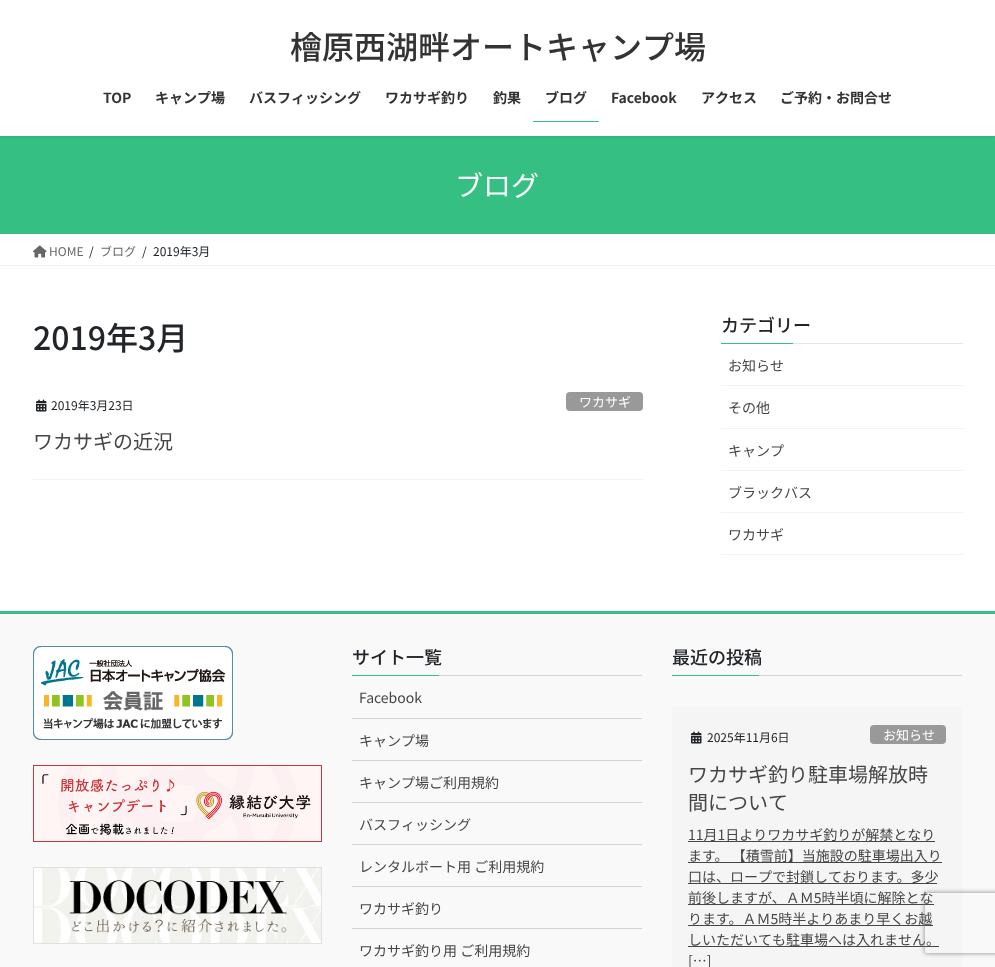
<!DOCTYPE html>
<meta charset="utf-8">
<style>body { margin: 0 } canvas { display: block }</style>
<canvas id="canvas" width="995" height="967"></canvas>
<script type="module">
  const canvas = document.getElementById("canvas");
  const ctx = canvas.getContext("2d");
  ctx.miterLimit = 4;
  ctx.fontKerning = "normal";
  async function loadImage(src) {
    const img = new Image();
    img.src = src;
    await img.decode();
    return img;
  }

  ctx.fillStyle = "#ffffff";
  ctx.fillRect(0, 0, 995, 967);
  ctx.fillStyle = "#35bf83";
  ctx.fillRect(0, 136, 995, 98);
  ctx.save();
  ctx.beginPath();
  ctx.rect(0, 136, 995, 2);
  ctx.clip();
  ctx.fillStyle = "rgba(0, 0, 0, 0.1)";
  ctx.filter = "blur(1.5px)";
  ctx.beginPath();
  ctx.rect(0, 1, 995, 136);
  ctx.fill();
  ctx.filter = "none";
  ctx.restore();
  ctx.font = "500 32px Noto Sans JP";
  ctx.fillStyle = "#333333";
  ctx.fillText("檜原西湖畔オートキャンプ場", 290, 59);
  ctx.font = "bold 14px Noto Sans JP";
  ctx.fillText("TOP", 103, 103);
  ctx.fillText("キャンプ場", 155, 103);
  ctx.fillText("バスフィッシング", 249, 103);
  ctx.fillText("ワカサギ釣り", 385, 103);
  ctx.fillText("釣果", 493, 103);
  ctx.fillText("ブログ", 545, 103);
  ctx.fillStyle = "#35bf83";
  ctx.fillRect(533, 121, 66, 1);
  ctx.fillStyle = "#333333";
  ctx.fillText("Facebook", 611, 103);
  ctx.fillText("アクセス", 701, 103);
  ctx.fillText("ご予約・お問合せ", 780, 103);
  ctx.font = "28px Noto Sans JP";
  ctx.fillStyle = "#ffffff";
  ctx.fillText("ブログ", 455, 196);
  ctx.fillStyle = "#f2f2f2";
  ctx.fillRect(0, 265, 995, 1);
  ctx.drawImage(await loadImage("img1.png"), 33, 245, 14, 13);
  ctx.font = "12px Noto Sans JP";
  ctx.fillStyle = "#666666";
  ctx.fillText("HOME", 49, 256);
  ctx.fillStyle = "#212529";
  ctx.fillText("/", 89, 256);
  ctx.fillStyle = "#666666";
  ctx.fillText("ブログ", 100, 256);
  ctx.fillStyle = "#212529";
  ctx.fillText("/", 142, 256);
  ctx.fillText("2019年3月", 153, 256);
  ctx.font = "500 32px Noto Sans JP";
  ctx.fillText("2019年3月", 33, 350);
  ctx.fillStyle = "#f2f2f2";
  ctx.fillRect(33, 479, 610, 1);
  ctx.drawImage(await loadImage("img2.png"), 36, 399, 11, 13);
  ctx.font = "12px Noto Sans JP";
  ctx.fillStyle = "#212529";
  ctx.fillText("2019年3月23日", 51, 410);
  ctx.fillStyle = "#999999";
  ctx.beginPath();
  ctx.roundRect(566, 392, 77, 19, 4);
  ctx.fill();
  ctx.font = "13px Noto Sans JP";
  ctx.fillStyle = "#ffffff";
  ctx.fillText("ワカサギ", 579, 407);
  ctx.font = "20px Noto Sans JP";
  ctx.fillStyle = "#464646";
  ctx.fillText("ワカサギの近況", 33, 449);
  ctx.fillStyle = "#e6e6e6";
  ctx.fillRect(793, 343, 170, 1);
  ctx.font = "500 18px Noto Sans JP";
  ctx.fillStyle = "#212529";
  ctx.fillText("カテゴリー", 721, 332);
  ctx.fillStyle = "#35bf83";
  ctx.fillRect(721, 343, 72, 1);
  ctx.fillStyle = "#f2f2f2";
  ctx.fillRect(721, 385, 242, 1);
  ctx.font = "14px Noto Sans JP";
  ctx.fillStyle = "#464646";
  ctx.fillText("お知らせ", 728, 371);
  ctx.fillStyle = "#f2f2f2";
  ctx.fillRect(721, 428, 242, 1);
  ctx.fillStyle = "#464646";
  ctx.fillText("その他", 728, 413);
  ctx.fillStyle = "#f2f2f2";
  ctx.fillRect(721, 470, 242, 1);
  ctx.fillStyle = "#464646";
  ctx.fillText("キャンプ", 728, 456);
  ctx.fillStyle = "#f2f2f2";
  ctx.fillRect(721, 512, 242, 1);
  ctx.fillStyle = "#464646";
  ctx.fillText("ブラックバス", 728, 498);
  ctx.fillStyle = "#f2f2f2";
  ctx.fillRect(721, 554, 242, 1);
  ctx.fillStyle = "#464646";
  ctx.fillText("ワカサギ", 728, 540);
  ctx.fillStyle = "#f9f9f9";
  ctx.fillRect(0, 614, 995, 353);
  ctx.fillStyle = "#35bf83";
  ctx.fillRect(0, 611, 995, 3);
  ctx.drawImage(await loadImage("img3.png"), 33, 646, 200, 94);
  ctx.drawImage(await loadImage("img4.png"), 33, 765, 289, 77);
  ctx.drawImage(await loadImage("img5.png"), 33, 867, 289, 77);
  ctx.fillStyle = "#d4d4d4";
  ctx.fillRect(439, 675, 203, 1);
  ctx.font = "500 18px Noto Sans JP";
  ctx.fillStyle = "#212529";
  ctx.fillText("サイト一覧", 352, 664);
  ctx.fillStyle = "#35bf83";
  ctx.fillRect(352, 675, 87, 1);
  ctx.fillStyle = "#d4d4d4";
  ctx.fillRect(352, 718, 290, 1);
  ctx.font = "14px Noto Sans JP";
  ctx.fillStyle = "#464646";
  ctx.fillText("Facebook", 359, 703);
  ctx.fillStyle = "#d4d4d4";
  ctx.fillRect(352, 760, 290, 1);
  ctx.fillStyle = "#464646";
  ctx.fillText("キャンプ場", 359, 746);
  ctx.fillStyle = "#d4d4d4";
  ctx.fillRect(352, 802, 290, 1);
  ctx.fillStyle = "#464646";
  ctx.fillText("キャンプ場ご利用規約", 359, 788);
  ctx.fillStyle = "#d4d4d4";
  ctx.fillRect(352, 844, 290, 1);
  ctx.fillStyle = "#464646";
  ctx.fillText("バスフィッシング", 359, 830);
  ctx.fillStyle = "#d4d4d4";
  ctx.fillRect(352, 886, 290, 1);
  ctx.fillStyle = "#464646";
  ctx.fillText("レンタルボート用 ご利用規約", 359, 872);
  ctx.fillStyle = "#d4d4d4";
  ctx.fillRect(352, 928, 290, 1);
  ctx.fillStyle = "#464646";
  ctx.fillText("ワカサギ釣り", 359, 914);
  ctx.fillText("ワカサギ釣り用 ご利用規約", 359, 956);
  ctx.fillStyle = "#d4d4d4";
  ctx.fillRect(759, 675, 203, 1);
  ctx.font = "500 18px Noto Sans JP";
  ctx.fillStyle = "#212529";
  ctx.fillText("最近の投稿", 672, 664);
  ctx.fillStyle = "#35bf83";
  ctx.fillRect(672, 675, 87, 1);
  ctx.fillStyle = "#f5f5f5";
  ctx.fillRect(672, 707, 290, 260);
  ctx.drawImage(await loadImage("img6.png"), 691, 731, 11, 13);
  ctx.font = "12px Noto Sans JP";
  ctx.fillStyle = "#212529";
  ctx.fillText("2025年11月6日", 707, 742);
  ctx.fillStyle = "#999999";
  ctx.beginPath();
  ctx.roundRect(870, 725, 76, 19, 4);
  ctx.fill();
  ctx.font = "13px Noto Sans JP";
  ctx.fillStyle = "#ffffff";
  ctx.fillText("お知らせ", 883, 740);
  ctx.font = "20px Noto Sans JP";
  ctx.fillStyle = "#464646";
  ctx.fillText("ワカサギ釣り駐車場解放時", 688, 782);
  ctx.fillText("間について", 688, 810);
  ctx.fillRect(688, 841, 247, 1);
  ctx.font = "14px Noto Sans JP";
  ctx.fillText("11月1日よりワカサギ釣りが解禁となり", 688, 840);
  ctx.fillRect(688, 862, 254, 1);
  ctx.fillText("ます。 【積雪前】当施設の駐車場出入り", 688, 861);
  ctx.fillRect(688, 883, 249, 1);
  ctx.fillText("口は、ロープで封鎖しております。多少", 688, 882);
  ctx.fillRect(688, 904, 246, 1);
  ctx.fillText("前後しますが、ＡＭ5時半頃に解除とな", 688, 903);
  ctx.fillRect(688, 925, 245, 1);
  ctx.fillText("ります。ＡＭ5時半よりあまり早くお越", 688, 924);
  ctx.fillRect(688, 946, 251, 1);
  ctx.fillText("しいただいても駐車場へは入れません。", 688, 945);
  ctx.fillText("[…]", 688, 966);
  ctx.save();
  ctx.beginPath();
  ctx.moveTo(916, 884);
  ctx.lineTo(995, 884);
  ctx.lineTo(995, 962);
  ctx.lineTo(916, 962);
  ctx.closePath();
  ctx.moveTo(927, 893);
  ctx.lineTo(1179, 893);
  ctx.bezierCurveTo(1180, 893, 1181, 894, 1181, 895);
  ctx.lineTo(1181, 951);
  ctx.bezierCurveTo(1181, 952, 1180, 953, 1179, 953);
  ctx.lineTo(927, 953);
  ctx.bezierCurveTo(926, 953, 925, 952, 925, 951);
  ctx.lineTo(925, 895);
  ctx.bezierCurveTo(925, 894, 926, 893, 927, 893);
  ctx.closePath();
  ctx.clip("evenodd");
  ctx.fillStyle = "#808080";
  ctx.filter = "blur(2.5px)";
  ctx.beginPath();
  ctx.roundRect(925, 893, 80, 60, 2);
  ctx.fill();
  ctx.filter = "none";
  ctx.restore();
</script>
